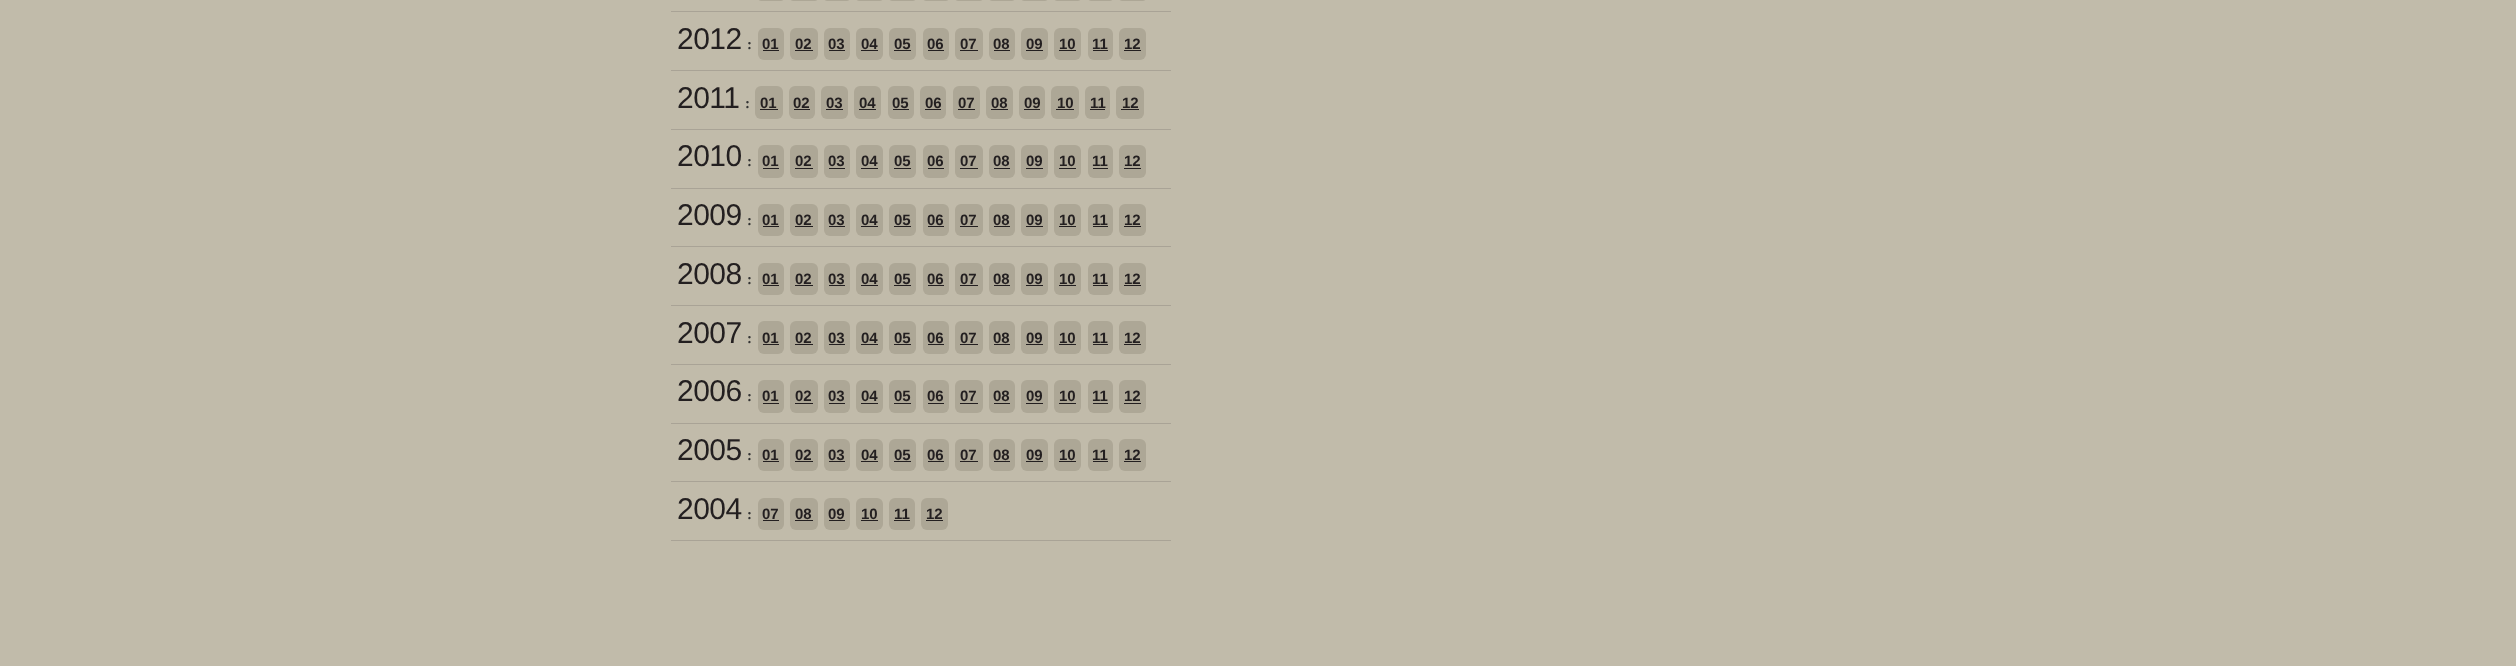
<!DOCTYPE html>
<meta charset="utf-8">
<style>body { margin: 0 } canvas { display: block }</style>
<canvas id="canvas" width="2516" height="666"></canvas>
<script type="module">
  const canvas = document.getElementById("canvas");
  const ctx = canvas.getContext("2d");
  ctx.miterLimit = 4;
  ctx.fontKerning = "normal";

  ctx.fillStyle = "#c1bbaa";
  ctx.fillRect(0, 0, 2516, 666);
  ctx.fillStyle = "#a9a396";
  ctx.fillRect(671, 11, 500, 1);
  ctx.fillStyle = "#ada796";
  ctx.beginPath();
  ctx.roundRect(758, -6, 26, 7, 6);
  ctx.fill();
  ctx.beginPath();
  ctx.roundRect(790, -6, 28, 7, 6);
  ctx.fill();
  ctx.beginPath();
  ctx.roundRect(824, -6, 26, 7, 6);
  ctx.fill();
  ctx.beginPath();
  ctx.roundRect(856, -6, 27, 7, 6);
  ctx.fill();
  ctx.beginPath();
  ctx.roundRect(889, -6, 27, 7, 6);
  ctx.fill();
  ctx.beginPath();
  ctx.roundRect(923, -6, 26, 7, 6);
  ctx.fill();
  ctx.beginPath();
  ctx.roundRect(955, -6, 28, 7, 6);
  ctx.fill();
  ctx.beginPath();
  ctx.roundRect(989, -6, 26, 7, 6);
  ctx.fill();
  ctx.beginPath();
  ctx.roundRect(1021, -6, 27, 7, 6);
  ctx.fill();
  ctx.beginPath();
  ctx.roundRect(1054, -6, 27, 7, 6);
  ctx.fill();
  ctx.beginPath();
  ctx.roundRect(1088, -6, 25, 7, 6);
  ctx.fill();
  ctx.beginPath();
  ctx.roundRect(1119, -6, 27, 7, 6);
  ctx.fill();
  ctx.fillStyle = "#a9a396";
  ctx.fillRect(671, 70, 500, 1);
  ctx.letterSpacing = "-0.5px";
  ctx.font = "30px Liberation Sans";
  ctx.fillStyle = "#231f20";
  ctx.fillText("2012", 677, 49);
  ctx.letterSpacing = "0px";
  ctx.font = "bold 15px Liberation Serif";
  ctx.fillStyle = "#333333";
  ctx.fillText(":", 747, 49);
  ctx.fillStyle = "#ada796";
  ctx.beginPath();
  ctx.roundRect(758, 28, 26, 32, 6);
  ctx.fill();
  ctx.font = "bold 15px Liberation Sans";
  ctx.fillStyle = "#231f20";
  ctx.fillText("01", 762, 49);
  ctx.fillRect(763, 50, 16, 1);
  ctx.fillStyle = "#ada796";
  ctx.beginPath();
  ctx.roundRect(790, 28, 28, 32, 6);
  ctx.fill();
  ctx.fillStyle = "#231f20";
  ctx.fillText("02", 795, 49);
  ctx.fillRect(795, 50, 18, 1);
  ctx.fillStyle = "#ada796";
  ctx.beginPath();
  ctx.roundRect(824, 28, 26, 32, 6);
  ctx.fill();
  ctx.fillStyle = "#231f20";
  ctx.fillText("03", 828, 49);
  ctx.fillRect(829, 50, 16, 1);
  ctx.fillStyle = "#ada796";
  ctx.beginPath();
  ctx.roundRect(856, 28, 27, 32, 6);
  ctx.fill();
  ctx.fillStyle = "#231f20";
  ctx.fillText("04", 861, 49);
  ctx.fillRect(861, 50, 17, 1);
  ctx.fillStyle = "#ada796";
  ctx.beginPath();
  ctx.roundRect(889, 28, 27, 32, 6);
  ctx.fill();
  ctx.fillStyle = "#231f20";
  ctx.fillText("05", 894, 49);
  ctx.fillRect(894, 50, 17, 1);
  ctx.fillStyle = "#ada796";
  ctx.beginPath();
  ctx.roundRect(923, 28, 26, 32, 6);
  ctx.fill();
  ctx.fillStyle = "#231f20";
  ctx.fillText("06", 927, 49);
  ctx.fillRect(928, 50, 16, 1);
  ctx.fillStyle = "#ada796";
  ctx.beginPath();
  ctx.roundRect(955, 28, 28, 32, 6);
  ctx.fill();
  ctx.fillStyle = "#231f20";
  ctx.fillText("07", 960, 49);
  ctx.fillRect(960, 50, 18, 1);
  ctx.fillStyle = "#ada796";
  ctx.beginPath();
  ctx.roundRect(989, 28, 26, 32, 6);
  ctx.fill();
  ctx.fillStyle = "#231f20";
  ctx.fillText("08", 993, 49);
  ctx.fillRect(994, 50, 16, 1);
  ctx.fillStyle = "#ada796";
  ctx.beginPath();
  ctx.roundRect(1021, 28, 27, 32, 6);
  ctx.fill();
  ctx.fillStyle = "#231f20";
  ctx.fillText("09", 1026, 49);
  ctx.fillRect(1026, 50, 17, 1);
  ctx.fillStyle = "#ada796";
  ctx.beginPath();
  ctx.roundRect(1054, 28, 27, 32, 6);
  ctx.fill();
  ctx.fillStyle = "#231f20";
  ctx.fillText("10", 1059, 49);
  ctx.fillRect(1059, 50, 17, 1);
  ctx.fillStyle = "#ada796";
  ctx.beginPath();
  ctx.roundRect(1088, 28, 25, 32, 6);
  ctx.fill();
  ctx.fillStyle = "#231f20";
  ctx.fillText("11", 1092, 49);
  ctx.fillRect(1093, 50, 15, 1);
  ctx.fillStyle = "#ada796";
  ctx.beginPath();
  ctx.roundRect(1119, 28, 27, 32, 6);
  ctx.fill();
  ctx.fillStyle = "#231f20";
  ctx.fillText("12", 1124, 49);
  ctx.fillRect(1124, 50, 17, 1);
  ctx.fillStyle = "#a9a396";
  ctx.fillRect(671, 129, 500, 1);
  ctx.letterSpacing = "-0.5px";
  ctx.font = "30px Liberation Sans";
  ctx.fillStyle = "#231f20";
  ctx.fillText("2011", 677, 108);
  ctx.letterSpacing = "0px";
  ctx.font = "bold 15px Liberation Serif";
  ctx.fillStyle = "#333333";
  ctx.fillText(":", 745, 108);
  ctx.fillStyle = "#ada796";
  ctx.beginPath();
  ctx.roundRect(755, 86, 28, 33, 6);
  ctx.fill();
  ctx.font = "bold 15px Liberation Sans";
  ctx.fillStyle = "#231f20";
  ctx.fillText("01", 760, 108);
  ctx.fillRect(760, 109, 18, 1);
  ctx.fillStyle = "#ada796";
  ctx.beginPath();
  ctx.roundRect(789, 86, 26, 33, 6);
  ctx.fill();
  ctx.fillStyle = "#231f20";
  ctx.fillText("02", 793, 108);
  ctx.fillRect(794, 109, 16, 1);
  ctx.fillStyle = "#ada796";
  ctx.beginPath();
  ctx.roundRect(821, 86, 27, 33, 6);
  ctx.fill();
  ctx.fillStyle = "#231f20";
  ctx.fillText("03", 826, 108);
  ctx.fillRect(826, 109, 17, 1);
  ctx.fillStyle = "#ada796";
  ctx.beginPath();
  ctx.roundRect(854, 86, 27, 33, 6);
  ctx.fill();
  ctx.fillStyle = "#231f20";
  ctx.fillText("04", 859, 108);
  ctx.fillRect(859, 109, 17, 1);
  ctx.fillStyle = "#ada796";
  ctx.beginPath();
  ctx.roundRect(888, 86, 26, 33, 6);
  ctx.fill();
  ctx.fillStyle = "#231f20";
  ctx.fillText("05", 892, 108);
  ctx.fillRect(893, 109, 16, 1);
  ctx.fillStyle = "#ada796";
  ctx.beginPath();
  ctx.roundRect(920, 86, 26, 33, 6);
  ctx.fill();
  ctx.fillStyle = "#231f20";
  ctx.fillText("06", 925, 108);
  ctx.fillRect(925, 109, 16, 1);
  ctx.fillStyle = "#ada796";
  ctx.beginPath();
  ctx.roundRect(953, 86, 27, 33, 6);
  ctx.fill();
  ctx.fillStyle = "#231f20";
  ctx.fillText("07", 958, 108);
  ctx.fillRect(958, 109, 17, 1);
  ctx.fillStyle = "#ada796";
  ctx.beginPath();
  ctx.roundRect(986, 86, 27, 33, 6);
  ctx.fill();
  ctx.fillStyle = "#231f20";
  ctx.fillText("08", 991, 108);
  ctx.fillRect(991, 109, 17, 1);
  ctx.fillStyle = "#ada796";
  ctx.beginPath();
  ctx.roundRect(1019, 86, 26, 33, 6);
  ctx.fill();
  ctx.fillStyle = "#231f20";
  ctx.fillText("09", 1024, 108);
  ctx.fillRect(1024, 109, 16, 1);
  ctx.fillStyle = "#ada796";
  ctx.beginPath();
  ctx.roundRect(1051, 86, 28, 33, 6);
  ctx.fill();
  ctx.fillStyle = "#231f20";
  ctx.fillText("10", 1057, 108);
  ctx.fillRect(1056, 109, 18, 1);
  ctx.fillStyle = "#ada796";
  ctx.beginPath();
  ctx.roundRect(1085, 86, 25, 33, 6);
  ctx.fill();
  ctx.fillStyle = "#231f20";
  ctx.fillText("11", 1090, 108);
  ctx.fillRect(1090, 109, 15, 1);
  ctx.fillStyle = "#ada796";
  ctx.beginPath();
  ctx.roundRect(1116, 86, 28, 33, 6);
  ctx.fill();
  ctx.fillStyle = "#231f20";
  ctx.fillText("12", 1122, 108);
  ctx.fillRect(1121, 109, 18, 1);
  ctx.fillStyle = "#a9a396";
  ctx.fillRect(671, 188, 500, 1);
  ctx.letterSpacing = "-0.5px";
  ctx.font = "30px Liberation Sans";
  ctx.fillStyle = "#231f20";
  ctx.fillText("2010", 677, 166);
  ctx.letterSpacing = "0px";
  ctx.font = "bold 15px Liberation Serif";
  ctx.fillStyle = "#333333";
  ctx.fillText(":", 747, 166);
  ctx.fillStyle = "#ada796";
  ctx.beginPath();
  ctx.roundRect(758, 145, 26, 33, 6);
  ctx.fill();
  ctx.font = "bold 15px Liberation Sans";
  ctx.fillStyle = "#231f20";
  ctx.fillText("01", 762, 166);
  ctx.fillRect(763, 168, 16, 1);
  ctx.fillStyle = "#ada796";
  ctx.beginPath();
  ctx.roundRect(790, 145, 28, 33, 6);
  ctx.fill();
  ctx.fillStyle = "#231f20";
  ctx.fillText("02", 795, 166);
  ctx.fillRect(795, 168, 18, 1);
  ctx.fillStyle = "#ada796";
  ctx.beginPath();
  ctx.roundRect(824, 145, 26, 33, 6);
  ctx.fill();
  ctx.fillStyle = "#231f20";
  ctx.fillText("03", 828, 166);
  ctx.fillRect(829, 168, 16, 1);
  ctx.fillStyle = "#ada796";
  ctx.beginPath();
  ctx.roundRect(856, 145, 27, 33, 6);
  ctx.fill();
  ctx.fillStyle = "#231f20";
  ctx.fillText("04", 861, 166);
  ctx.fillRect(861, 168, 17, 1);
  ctx.fillStyle = "#ada796";
  ctx.beginPath();
  ctx.roundRect(889, 145, 27, 33, 6);
  ctx.fill();
  ctx.fillStyle = "#231f20";
  ctx.fillText("05", 894, 166);
  ctx.fillRect(894, 168, 17, 1);
  ctx.fillStyle = "#ada796";
  ctx.beginPath();
  ctx.roundRect(923, 145, 26, 33, 6);
  ctx.fill();
  ctx.fillStyle = "#231f20";
  ctx.fillText("06", 927, 166);
  ctx.fillRect(928, 168, 16, 1);
  ctx.fillStyle = "#ada796";
  ctx.beginPath();
  ctx.roundRect(955, 145, 28, 33, 6);
  ctx.fill();
  ctx.fillStyle = "#231f20";
  ctx.fillText("07", 960, 166);
  ctx.fillRect(960, 168, 18, 1);
  ctx.fillStyle = "#ada796";
  ctx.beginPath();
  ctx.roundRect(989, 145, 26, 33, 6);
  ctx.fill();
  ctx.fillStyle = "#231f20";
  ctx.fillText("08", 993, 166);
  ctx.fillRect(994, 168, 16, 1);
  ctx.fillStyle = "#ada796";
  ctx.beginPath();
  ctx.roundRect(1021, 145, 27, 33, 6);
  ctx.fill();
  ctx.fillStyle = "#231f20";
  ctx.fillText("09", 1026, 166);
  ctx.fillRect(1026, 168, 17, 1);
  ctx.fillStyle = "#ada796";
  ctx.beginPath();
  ctx.roundRect(1054, 145, 27, 33, 6);
  ctx.fill();
  ctx.fillStyle = "#231f20";
  ctx.fillText("10", 1059, 166);
  ctx.fillRect(1059, 168, 17, 1);
  ctx.fillStyle = "#ada796";
  ctx.beginPath();
  ctx.roundRect(1088, 145, 25, 33, 6);
  ctx.fill();
  ctx.fillStyle = "#231f20";
  ctx.fillText("11", 1092, 166);
  ctx.fillRect(1093, 168, 15, 1);
  ctx.fillStyle = "#ada796";
  ctx.beginPath();
  ctx.roundRect(1119, 145, 27, 33, 6);
  ctx.fill();
  ctx.fillStyle = "#231f20";
  ctx.fillText("12", 1124, 166);
  ctx.fillRect(1124, 168, 17, 1);
  ctx.fillStyle = "#a9a396";
  ctx.fillRect(671, 246, 500, 1);
  ctx.letterSpacing = "-0.5px";
  ctx.font = "30px Liberation Sans";
  ctx.fillStyle = "#231f20";
  ctx.fillText("2009", 677, 225);
  ctx.letterSpacing = "0px";
  ctx.font = "bold 15px Liberation Serif";
  ctx.fillStyle = "#333333";
  ctx.fillText(":", 747, 225);
  ctx.fillStyle = "#ada796";
  ctx.beginPath();
  ctx.roundRect(758, 204, 26, 32, 6);
  ctx.fill();
  ctx.font = "bold 15px Liberation Sans";
  ctx.fillStyle = "#231f20";
  ctx.fillText("01", 762, 225);
  ctx.fillRect(763, 226, 16, 1);
  ctx.fillStyle = "#ada796";
  ctx.beginPath();
  ctx.roundRect(790, 204, 28, 32, 6);
  ctx.fill();
  ctx.fillStyle = "#231f20";
  ctx.fillText("02", 795, 225);
  ctx.fillRect(795, 226, 18, 1);
  ctx.fillStyle = "#ada796";
  ctx.beginPath();
  ctx.roundRect(824, 204, 26, 32, 6);
  ctx.fill();
  ctx.fillStyle = "#231f20";
  ctx.fillText("03", 828, 225);
  ctx.fillRect(829, 226, 16, 1);
  ctx.fillStyle = "#ada796";
  ctx.beginPath();
  ctx.roundRect(856, 204, 27, 32, 6);
  ctx.fill();
  ctx.fillStyle = "#231f20";
  ctx.fillText("04", 861, 225);
  ctx.fillRect(861, 226, 17, 1);
  ctx.fillStyle = "#ada796";
  ctx.beginPath();
  ctx.roundRect(889, 204, 27, 32, 6);
  ctx.fill();
  ctx.fillStyle = "#231f20";
  ctx.fillText("05", 894, 225);
  ctx.fillRect(894, 226, 17, 1);
  ctx.fillStyle = "#ada796";
  ctx.beginPath();
  ctx.roundRect(923, 204, 26, 32, 6);
  ctx.fill();
  ctx.fillStyle = "#231f20";
  ctx.fillText("06", 927, 225);
  ctx.fillRect(928, 226, 16, 1);
  ctx.fillStyle = "#ada796";
  ctx.beginPath();
  ctx.roundRect(955, 204, 28, 32, 6);
  ctx.fill();
  ctx.fillStyle = "#231f20";
  ctx.fillText("07", 960, 225);
  ctx.fillRect(960, 226, 18, 1);
  ctx.fillStyle = "#ada796";
  ctx.beginPath();
  ctx.roundRect(989, 204, 26, 32, 6);
  ctx.fill();
  ctx.fillStyle = "#231f20";
  ctx.fillText("08", 993, 225);
  ctx.fillRect(994, 226, 16, 1);
  ctx.fillStyle = "#ada796";
  ctx.beginPath();
  ctx.roundRect(1021, 204, 27, 32, 6);
  ctx.fill();
  ctx.fillStyle = "#231f20";
  ctx.fillText("09", 1026, 225);
  ctx.fillRect(1026, 226, 17, 1);
  ctx.fillStyle = "#ada796";
  ctx.beginPath();
  ctx.roundRect(1054, 204, 27, 32, 6);
  ctx.fill();
  ctx.fillStyle = "#231f20";
  ctx.fillText("10", 1059, 225);
  ctx.fillRect(1059, 226, 17, 1);
  ctx.fillStyle = "#ada796";
  ctx.beginPath();
  ctx.roundRect(1088, 204, 25, 32, 6);
  ctx.fill();
  ctx.fillStyle = "#231f20";
  ctx.fillText("11", 1092, 225);
  ctx.fillRect(1093, 226, 15, 1);
  ctx.fillStyle = "#ada796";
  ctx.beginPath();
  ctx.roundRect(1119, 204, 27, 32, 6);
  ctx.fill();
  ctx.fillStyle = "#231f20";
  ctx.fillText("12", 1124, 225);
  ctx.fillRect(1124, 226, 17, 1);
  ctx.fillStyle = "#a9a396";
  ctx.fillRect(671, 305, 500, 1);
  ctx.letterSpacing = "-0.5px";
  ctx.font = "30px Liberation Sans";
  ctx.fillStyle = "#231f20";
  ctx.fillText("2008", 677, 284);
  ctx.letterSpacing = "0px";
  ctx.font = "bold 15px Liberation Serif";
  ctx.fillStyle = "#333333";
  ctx.fillText(":", 747, 284);
  ctx.fillStyle = "#ada796";
  ctx.beginPath();
  ctx.roundRect(758, 263, 26, 32, 6);
  ctx.fill();
  ctx.font = "bold 15px Liberation Sans";
  ctx.fillStyle = "#231f20";
  ctx.fillText("01", 762, 284);
  ctx.fillRect(763, 285, 16, 1);
  ctx.fillStyle = "#ada796";
  ctx.beginPath();
  ctx.roundRect(790, 263, 28, 32, 6);
  ctx.fill();
  ctx.fillStyle = "#231f20";
  ctx.fillText("02", 795, 284);
  ctx.fillRect(795, 285, 18, 1);
  ctx.fillStyle = "#ada796";
  ctx.beginPath();
  ctx.roundRect(824, 263, 26, 32, 6);
  ctx.fill();
  ctx.fillStyle = "#231f20";
  ctx.fillText("03", 828, 284);
  ctx.fillRect(829, 285, 16, 1);
  ctx.fillStyle = "#ada796";
  ctx.beginPath();
  ctx.roundRect(856, 263, 27, 32, 6);
  ctx.fill();
  ctx.fillStyle = "#231f20";
  ctx.fillText("04", 861, 284);
  ctx.fillRect(861, 285, 17, 1);
  ctx.fillStyle = "#ada796";
  ctx.beginPath();
  ctx.roundRect(889, 263, 27, 32, 6);
  ctx.fill();
  ctx.fillStyle = "#231f20";
  ctx.fillText("05", 894, 284);
  ctx.fillRect(894, 285, 17, 1);
  ctx.fillStyle = "#ada796";
  ctx.beginPath();
  ctx.roundRect(923, 263, 26, 32, 6);
  ctx.fill();
  ctx.fillStyle = "#231f20";
  ctx.fillText("06", 927, 284);
  ctx.fillRect(928, 285, 16, 1);
  ctx.fillStyle = "#ada796";
  ctx.beginPath();
  ctx.roundRect(955, 263, 28, 32, 6);
  ctx.fill();
  ctx.fillStyle = "#231f20";
  ctx.fillText("07", 960, 284);
  ctx.fillRect(960, 285, 18, 1);
  ctx.fillStyle = "#ada796";
  ctx.beginPath();
  ctx.roundRect(989, 263, 26, 32, 6);
  ctx.fill();
  ctx.fillStyle = "#231f20";
  ctx.fillText("08", 993, 284);
  ctx.fillRect(994, 285, 16, 1);
  ctx.fillStyle = "#ada796";
  ctx.beginPath();
  ctx.roundRect(1021, 263, 27, 32, 6);
  ctx.fill();
  ctx.fillStyle = "#231f20";
  ctx.fillText("09", 1026, 284);
  ctx.fillRect(1026, 285, 17, 1);
  ctx.fillStyle = "#ada796";
  ctx.beginPath();
  ctx.roundRect(1054, 263, 27, 32, 6);
  ctx.fill();
  ctx.fillStyle = "#231f20";
  ctx.fillText("10", 1059, 284);
  ctx.fillRect(1059, 285, 17, 1);
  ctx.fillStyle = "#ada796";
  ctx.beginPath();
  ctx.roundRect(1088, 263, 25, 32, 6);
  ctx.fill();
  ctx.fillStyle = "#231f20";
  ctx.fillText("11", 1092, 284);
  ctx.fillRect(1093, 285, 15, 1);
  ctx.fillStyle = "#ada796";
  ctx.beginPath();
  ctx.roundRect(1119, 263, 27, 32, 6);
  ctx.fill();
  ctx.fillStyle = "#231f20";
  ctx.fillText("12", 1124, 284);
  ctx.fillRect(1124, 285, 17, 1);
  ctx.fillStyle = "#a9a396";
  ctx.fillRect(671, 364, 500, 1);
  ctx.letterSpacing = "-0.5px";
  ctx.font = "30px Liberation Sans";
  ctx.fillStyle = "#231f20";
  ctx.fillText("2007", 677, 343);
  ctx.letterSpacing = "0px";
  ctx.font = "bold 15px Liberation Serif";
  ctx.fillStyle = "#333333";
  ctx.fillText(":", 747, 343);
  ctx.fillStyle = "#ada796";
  ctx.beginPath();
  ctx.roundRect(758, 321, 26, 33, 6);
  ctx.fill();
  ctx.font = "bold 15px Liberation Sans";
  ctx.fillStyle = "#231f20";
  ctx.fillText("01", 762, 343);
  ctx.fillRect(763, 344, 16, 1);
  ctx.fillStyle = "#ada796";
  ctx.beginPath();
  ctx.roundRect(790, 321, 28, 33, 6);
  ctx.fill();
  ctx.fillStyle = "#231f20";
  ctx.fillText("02", 795, 343);
  ctx.fillRect(795, 344, 18, 1);
  ctx.fillStyle = "#ada796";
  ctx.beginPath();
  ctx.roundRect(824, 321, 26, 33, 6);
  ctx.fill();
  ctx.fillStyle = "#231f20";
  ctx.fillText("03", 828, 343);
  ctx.fillRect(829, 344, 16, 1);
  ctx.fillStyle = "#ada796";
  ctx.beginPath();
  ctx.roundRect(856, 321, 27, 33, 6);
  ctx.fill();
  ctx.fillStyle = "#231f20";
  ctx.fillText("04", 861, 343);
  ctx.fillRect(861, 344, 17, 1);
  ctx.fillStyle = "#ada796";
  ctx.beginPath();
  ctx.roundRect(889, 321, 27, 33, 6);
  ctx.fill();
  ctx.fillStyle = "#231f20";
  ctx.fillText("05", 894, 343);
  ctx.fillRect(894, 344, 17, 1);
  ctx.fillStyle = "#ada796";
  ctx.beginPath();
  ctx.roundRect(923, 321, 26, 33, 6);
  ctx.fill();
  ctx.fillStyle = "#231f20";
  ctx.fillText("06", 927, 343);
  ctx.fillRect(928, 344, 16, 1);
  ctx.fillStyle = "#ada796";
  ctx.beginPath();
  ctx.roundRect(955, 321, 28, 33, 6);
  ctx.fill();
  ctx.fillStyle = "#231f20";
  ctx.fillText("07", 960, 343);
  ctx.fillRect(960, 344, 18, 1);
  ctx.fillStyle = "#ada796";
  ctx.beginPath();
  ctx.roundRect(989, 321, 26, 33, 6);
  ctx.fill();
  ctx.fillStyle = "#231f20";
  ctx.fillText("08", 993, 343);
  ctx.fillRect(994, 344, 16, 1);
  ctx.fillStyle = "#ada796";
  ctx.beginPath();
  ctx.roundRect(1021, 321, 27, 33, 6);
  ctx.fill();
  ctx.fillStyle = "#231f20";
  ctx.fillText("09", 1026, 343);
  ctx.fillRect(1026, 344, 17, 1);
  ctx.fillStyle = "#ada796";
  ctx.beginPath();
  ctx.roundRect(1054, 321, 27, 33, 6);
  ctx.fill();
  ctx.fillStyle = "#231f20";
  ctx.fillText("10", 1059, 343);
  ctx.fillRect(1059, 344, 17, 1);
  ctx.fillStyle = "#ada796";
  ctx.beginPath();
  ctx.roundRect(1088, 321, 25, 33, 6);
  ctx.fill();
  ctx.fillStyle = "#231f20";
  ctx.fillText("11", 1092, 343);
  ctx.fillRect(1093, 344, 15, 1);
  ctx.fillStyle = "#ada796";
  ctx.beginPath();
  ctx.roundRect(1119, 321, 27, 33, 6);
  ctx.fill();
  ctx.fillStyle = "#231f20";
  ctx.fillText("12", 1124, 343);
  ctx.fillRect(1124, 344, 17, 1);
  ctx.fillStyle = "#a9a396";
  ctx.fillRect(671, 423, 500, 1);
  ctx.letterSpacing = "-0.5px";
  ctx.font = "30px Liberation Sans";
  ctx.fillStyle = "#231f20";
  ctx.fillText("2006", 677, 401);
  ctx.letterSpacing = "0px";
  ctx.font = "bold 15px Liberation Serif";
  ctx.fillStyle = "#333333";
  ctx.fillText(":", 747, 401);
  ctx.fillStyle = "#ada796";
  ctx.beginPath();
  ctx.roundRect(758, 380, 26, 33, 6);
  ctx.fill();
  ctx.font = "bold 15px Liberation Sans";
  ctx.fillStyle = "#231f20";
  ctx.fillText("01", 762, 401);
  ctx.fillRect(763, 403, 16, 1);
  ctx.fillStyle = "#ada796";
  ctx.beginPath();
  ctx.roundRect(790, 380, 28, 33, 6);
  ctx.fill();
  ctx.fillStyle = "#231f20";
  ctx.fillText("02", 795, 401);
  ctx.fillRect(795, 403, 18, 1);
  ctx.fillStyle = "#ada796";
  ctx.beginPath();
  ctx.roundRect(824, 380, 26, 33, 6);
  ctx.fill();
  ctx.fillStyle = "#231f20";
  ctx.fillText("03", 828, 401);
  ctx.fillRect(829, 403, 16, 1);
  ctx.fillStyle = "#ada796";
  ctx.beginPath();
  ctx.roundRect(856, 380, 27, 33, 6);
  ctx.fill();
  ctx.fillStyle = "#231f20";
  ctx.fillText("04", 861, 401);
  ctx.fillRect(861, 403, 17, 1);
  ctx.fillStyle = "#ada796";
  ctx.beginPath();
  ctx.roundRect(889, 380, 27, 33, 6);
  ctx.fill();
  ctx.fillStyle = "#231f20";
  ctx.fillText("05", 894, 401);
  ctx.fillRect(894, 403, 17, 1);
  ctx.fillStyle = "#ada796";
  ctx.beginPath();
  ctx.roundRect(923, 380, 26, 33, 6);
  ctx.fill();
  ctx.fillStyle = "#231f20";
  ctx.fillText("06", 927, 401);
  ctx.fillRect(928, 403, 16, 1);
  ctx.fillStyle = "#ada796";
  ctx.beginPath();
  ctx.roundRect(955, 380, 28, 33, 6);
  ctx.fill();
  ctx.fillStyle = "#231f20";
  ctx.fillText("07", 960, 401);
  ctx.fillRect(960, 403, 18, 1);
  ctx.fillStyle = "#ada796";
  ctx.beginPath();
  ctx.roundRect(989, 380, 26, 33, 6);
  ctx.fill();
  ctx.fillStyle = "#231f20";
  ctx.fillText("08", 993, 401);
  ctx.fillRect(994, 403, 16, 1);
  ctx.fillStyle = "#ada796";
  ctx.beginPath();
  ctx.roundRect(1021, 380, 27, 33, 6);
  ctx.fill();
  ctx.fillStyle = "#231f20";
  ctx.fillText("09", 1026, 401);
  ctx.fillRect(1026, 403, 17, 1);
  ctx.fillStyle = "#ada796";
  ctx.beginPath();
  ctx.roundRect(1054, 380, 27, 33, 6);
  ctx.fill();
  ctx.fillStyle = "#231f20";
  ctx.fillText("10", 1059, 401);
  ctx.fillRect(1059, 403, 17, 1);
  ctx.fillStyle = "#ada796";
  ctx.beginPath();
  ctx.roundRect(1088, 380, 25, 33, 6);
  ctx.fill();
  ctx.fillStyle = "#231f20";
  ctx.fillText("11", 1092, 401);
  ctx.fillRect(1093, 403, 15, 1);
  ctx.fillStyle = "#ada796";
  ctx.beginPath();
  ctx.roundRect(1119, 380, 27, 33, 6);
  ctx.fill();
  ctx.fillStyle = "#231f20";
  ctx.fillText("12", 1124, 401);
  ctx.fillRect(1124, 403, 17, 1);
  ctx.fillStyle = "#a9a396";
  ctx.fillRect(671, 481, 500, 1);
  ctx.letterSpacing = "-0.5px";
  ctx.font = "30px Liberation Sans";
  ctx.fillStyle = "#231f20";
  ctx.fillText("2005", 677, 460);
  ctx.letterSpacing = "0px";
  ctx.font = "bold 15px Liberation Serif";
  ctx.fillStyle = "#333333";
  ctx.fillText(":", 747, 460);
  ctx.fillStyle = "#ada796";
  ctx.beginPath();
  ctx.roundRect(758, 439, 26, 32, 6);
  ctx.fill();
  ctx.font = "bold 15px Liberation Sans";
  ctx.fillStyle = "#231f20";
  ctx.fillText("01", 762, 460);
  ctx.fillRect(763, 461, 16, 1);
  ctx.fillStyle = "#ada796";
  ctx.beginPath();
  ctx.roundRect(790, 439, 28, 32, 6);
  ctx.fill();
  ctx.fillStyle = "#231f20";
  ctx.fillText("02", 795, 460);
  ctx.fillRect(795, 461, 18, 1);
  ctx.fillStyle = "#ada796";
  ctx.beginPath();
  ctx.roundRect(824, 439, 26, 32, 6);
  ctx.fill();
  ctx.fillStyle = "#231f20";
  ctx.fillText("03", 828, 460);
  ctx.fillRect(829, 461, 16, 1);
  ctx.fillStyle = "#ada796";
  ctx.beginPath();
  ctx.roundRect(856, 439, 27, 32, 6);
  ctx.fill();
  ctx.fillStyle = "#231f20";
  ctx.fillText("04", 861, 460);
  ctx.fillRect(861, 461, 17, 1);
  ctx.fillStyle = "#ada796";
  ctx.beginPath();
  ctx.roundRect(889, 439, 27, 32, 6);
  ctx.fill();
  ctx.fillStyle = "#231f20";
  ctx.fillText("05", 894, 460);
  ctx.fillRect(894, 461, 17, 1);
  ctx.fillStyle = "#ada796";
  ctx.beginPath();
  ctx.roundRect(923, 439, 26, 32, 6);
  ctx.fill();
  ctx.fillStyle = "#231f20";
  ctx.fillText("06", 927, 460);
  ctx.fillRect(928, 461, 16, 1);
  ctx.fillStyle = "#ada796";
  ctx.beginPath();
  ctx.roundRect(955, 439, 28, 32, 6);
  ctx.fill();
  ctx.fillStyle = "#231f20";
  ctx.fillText("07", 960, 460);
  ctx.fillRect(960, 461, 18, 1);
  ctx.fillStyle = "#ada796";
  ctx.beginPath();
  ctx.roundRect(989, 439, 26, 32, 6);
  ctx.fill();
  ctx.fillStyle = "#231f20";
  ctx.fillText("08", 993, 460);
  ctx.fillRect(994, 461, 16, 1);
  ctx.fillStyle = "#ada796";
  ctx.beginPath();
  ctx.roundRect(1021, 439, 27, 32, 6);
  ctx.fill();
  ctx.fillStyle = "#231f20";
  ctx.fillText("09", 1026, 460);
  ctx.fillRect(1026, 461, 17, 1);
  ctx.fillStyle = "#ada796";
  ctx.beginPath();
  ctx.roundRect(1054, 439, 27, 32, 6);
  ctx.fill();
  ctx.fillStyle = "#231f20";
  ctx.fillText("10", 1059, 460);
  ctx.fillRect(1059, 461, 17, 1);
  ctx.fillStyle = "#ada796";
  ctx.beginPath();
  ctx.roundRect(1088, 439, 25, 32, 6);
  ctx.fill();
  ctx.fillStyle = "#231f20";
  ctx.fillText("11", 1092, 460);
  ctx.fillRect(1093, 461, 15, 1);
  ctx.fillStyle = "#ada796";
  ctx.beginPath();
  ctx.roundRect(1119, 439, 27, 32, 6);
  ctx.fill();
  ctx.fillStyle = "#231f20";
  ctx.fillText("12", 1124, 460);
  ctx.fillRect(1124, 461, 17, 1);
  ctx.fillStyle = "#a9a396";
  ctx.fillRect(671, 540, 500, 1);
  ctx.letterSpacing = "-0.5px";
  ctx.font = "30px Liberation Sans";
  ctx.fillStyle = "#231f20";
  ctx.fillText("2004", 677, 519);
  ctx.letterSpacing = "0px";
  ctx.font = "bold 15px Liberation Serif";
  ctx.fillStyle = "#333333";
  ctx.fillText(":", 747, 519);
  ctx.fillStyle = "#ada796";
  ctx.beginPath();
  ctx.roundRect(758, 498, 26, 32, 6);
  ctx.fill();
  ctx.font = "bold 15px Liberation Sans";
  ctx.fillStyle = "#231f20";
  ctx.fillText("07", 762, 519);
  ctx.fillRect(763, 520, 16, 1);
  ctx.fillStyle = "#ada796";
  ctx.beginPath();
  ctx.roundRect(790, 498, 28, 32, 6);
  ctx.fill();
  ctx.fillStyle = "#231f20";
  ctx.fillText("08", 795, 519);
  ctx.fillRect(795, 520, 18, 1);
  ctx.fillStyle = "#ada796";
  ctx.beginPath();
  ctx.roundRect(824, 498, 26, 32, 6);
  ctx.fill();
  ctx.fillStyle = "#231f20";
  ctx.fillText("09", 828, 519);
  ctx.fillRect(829, 520, 16, 1);
  ctx.fillStyle = "#ada796";
  ctx.beginPath();
  ctx.roundRect(856, 498, 27, 32, 6);
  ctx.fill();
  ctx.fillStyle = "#231f20";
  ctx.fillText("10", 861, 519);
  ctx.fillRect(861, 520, 17, 1);
  ctx.fillStyle = "#ada796";
  ctx.beginPath();
  ctx.roundRect(889, 498, 26, 32, 6);
  ctx.fill();
  ctx.fillStyle = "#231f20";
  ctx.fillText("11", 894, 519);
  ctx.fillRect(894, 520, 16, 1);
  ctx.fillStyle = "#ada796";
  ctx.beginPath();
  ctx.roundRect(921, 498, 27, 32, 6);
  ctx.fill();
  ctx.fillStyle = "#231f20";
  ctx.fillText("12", 926, 519);
  ctx.fillRect(926, 520, 17, 1);
</script>
